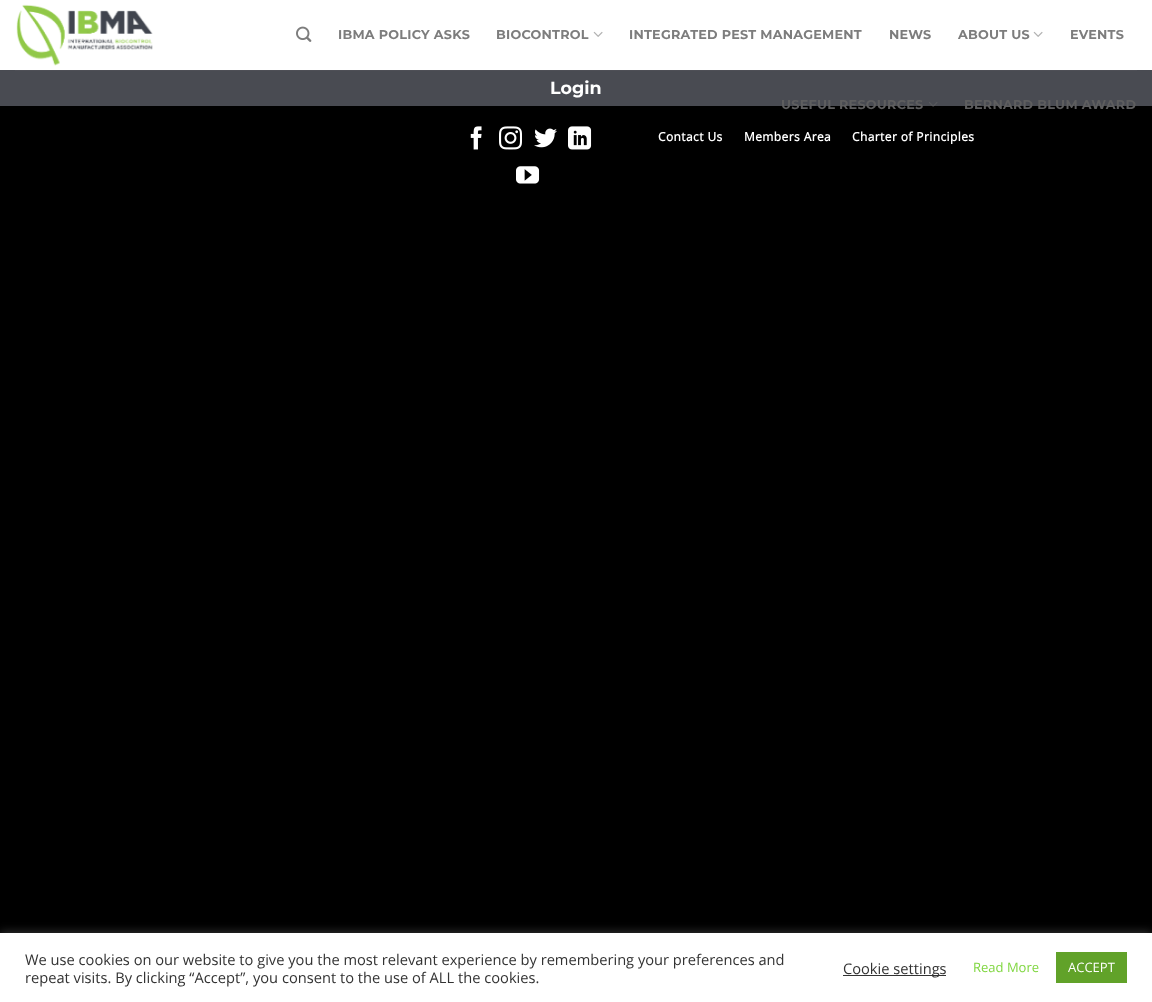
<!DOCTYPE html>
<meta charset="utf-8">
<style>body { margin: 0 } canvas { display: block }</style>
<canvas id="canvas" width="1152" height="1002"></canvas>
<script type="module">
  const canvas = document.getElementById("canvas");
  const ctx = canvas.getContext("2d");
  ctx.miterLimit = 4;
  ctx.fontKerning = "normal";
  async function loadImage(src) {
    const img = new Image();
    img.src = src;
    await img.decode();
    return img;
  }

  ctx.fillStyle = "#ffffff";
  ctx.fillRect(0, 0, 1152, 1002);
  ctx.drawImage(await loadImage("img1.png"), 16, 4, 137, 62);
  ctx.drawImage(await loadImage("img2.png"), 296, 26, 16, 16);
  ctx.letterSpacing = "0.25px";
  ctx.font = "bold 12.75px Montserrat";
  ctx.fillStyle = "#7d7d7d";
  ctx.fillText("IBMA POLICY ASKS", 338, 39);
  ctx.fillText("BIOCONTROL", 496, 39);
  ctx.drawImage(await loadImage("img3.png"), 593, 31, 10, 6);
  ctx.fillText("INTEGRATED PEST MANAGEMENT", 629, 39);
  ctx.fillText("NEWS", 889, 39);
  ctx.fillText("ABOUT US", 958, 39);
  ctx.drawImage(await loadImage("img3.png"), 1033, 31, 10, 6);
  ctx.fillText("EVENTS", 1070, 39);
  ctx.fillStyle = "#494b52";
  ctx.fillRect(0, 70, 1152, 36);
  ctx.fillStyle = "#000000";
  ctx.fillRect(0, 106, 1152, 827);
  ctx.fillStyle = "#5e5e5f";
  ctx.fillText("USEFUL RESOURCES", 781, 109);
  ctx.drawImage(await loadImage("img4.png"), 929, 102, 9, 5);
  ctx.fillText("BERNARD BLUM AWARD", 964, 109);
  ctx.fillStyle = "#4e4f56";
  ctx.fillRect(15, 70, 1122, 1);
  ctx.letterSpacing = "0px";
  ctx.font = "bold 17.5px Montserrat";
  ctx.fillStyle = "#ffffff";
  ctx.fillText("Login", 550, 94);
  ctx.drawImage(await loadImage("img5.png"), 470, 126, 12, 24);
  ctx.drawImage(await loadImage("img6.png"), 499, 126, 23, 24);
  ctx.drawImage(await loadImage("img7.png"), 534, 128, 23, 20);
  ctx.drawImage(await loadImage("img8.png"), 568, 126, 24, 24);
  ctx.drawImage(await loadImage("img9.png"), 516, 166, 24, 18);
  ctx.letterSpacing = "0.4px";
  ctx.font = "bold 12px Open Sans";
  ctx.fillText("Contact Us", 658, 141);
  ctx.fillText("Members Area", 744, 141);
  ctx.fillText("Charter of Principles", 852, 141);
  ctx.fillStyle = "rgba(172, 171, 171, 0.3)";
  ctx.filter = "blur(5px)";
  ctx.beginPath();
  ctx.rect(0, 932, 1152, 69);
  ctx.fill();
  ctx.filter = "none";
  ctx.fillStyle = "#ffffff";
  ctx.fillRect(0, 933, 1152, 69);
  ctx.letterSpacing = "0px";
  ctx.font = "14.67px Open Sans";
  ctx.fillStyle = "#333333";
  ctx.fillText("We use cookies on our website to give you the most relevant experience by remembering your preferences and", 25, 965);
  ctx.fillText("repeat visits. By clicking “Accept”, you consent to the use of ALL the cookies.", 25, 983);
  ctx.fillRect(843, 975, 103, 1);
  ctx.fillText("Cookie settings", 843, 974);
  ctx.font = "13px Open Sans";
  ctx.fillStyle = "#81d742";
  ctx.fillText("Read More", 973, 972);
  ctx.fillStyle = "#61a229";
  ctx.fillRect(1056, 952, 71, 31);
  ctx.fillStyle = "#ffffff";
  ctx.fillText("ACCEPT", 1068, 972);
</script>
